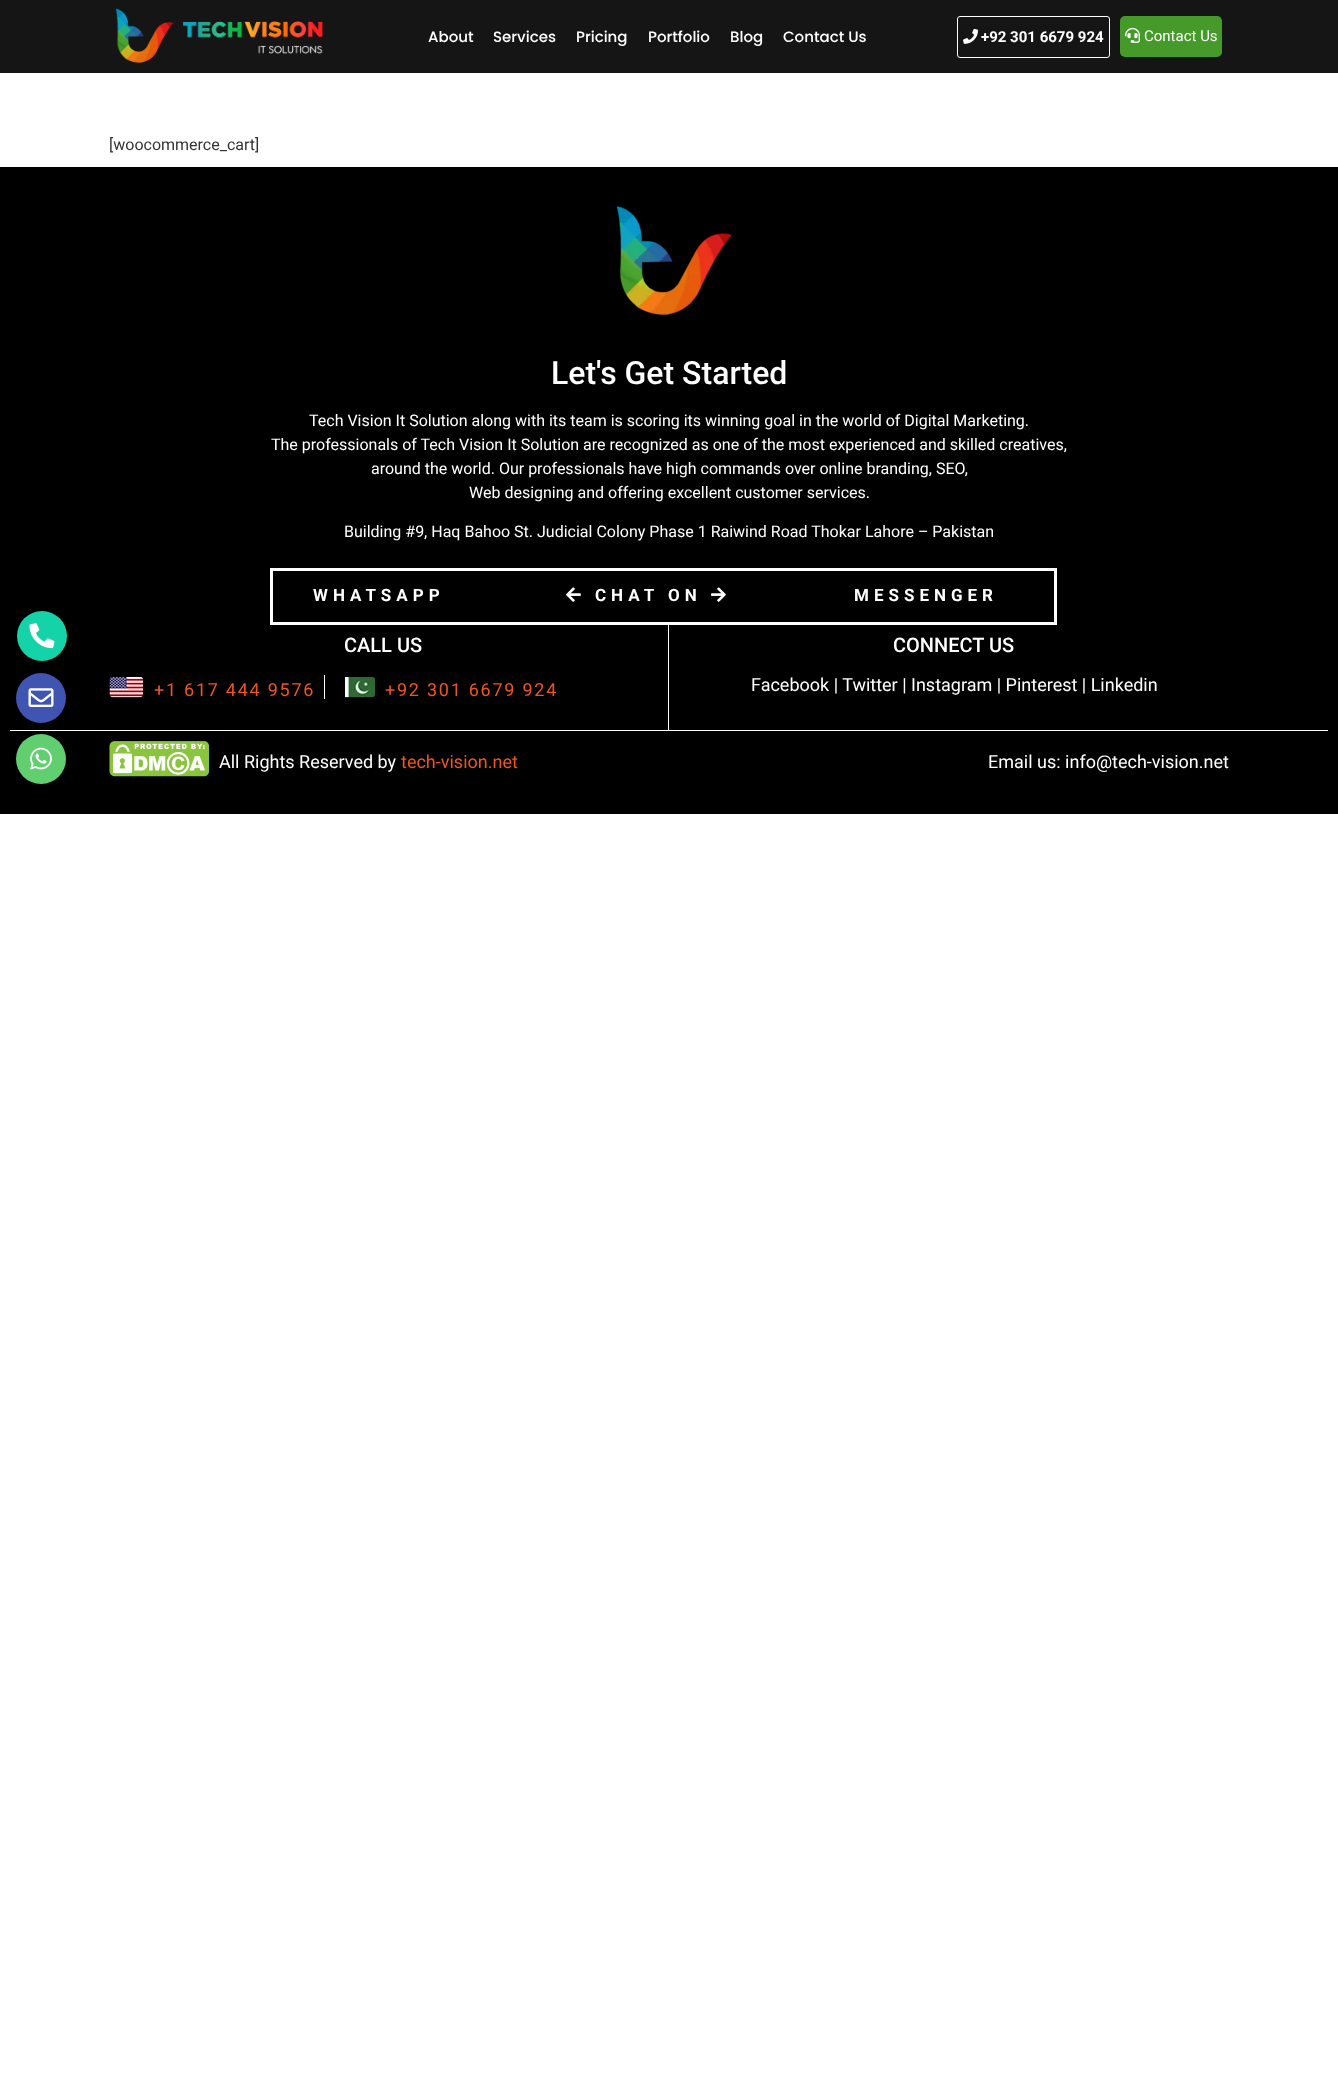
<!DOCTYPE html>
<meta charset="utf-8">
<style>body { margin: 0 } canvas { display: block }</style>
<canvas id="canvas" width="1338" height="2085"></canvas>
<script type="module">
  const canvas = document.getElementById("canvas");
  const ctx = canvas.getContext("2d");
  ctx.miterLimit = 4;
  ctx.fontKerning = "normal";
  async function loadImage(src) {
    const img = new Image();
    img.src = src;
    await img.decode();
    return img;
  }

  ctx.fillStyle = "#ffffff";
  ctx.fillRect(0, 0, 1338, 2085);
  ctx.fillStyle = "#151515";
  ctx.fillRect(0, 0, 1338, 73);
  ctx.drawImage(await loadImage("img1.png"), 115, 8, 208, 55);
  ctx.font = "500 15px Poppins";
  ctx.fillStyle = "#ffffff";
  ctx.fillText("About", 428, 42);
  ctx.fillText("Services", 493, 42);
  ctx.fillText("Pricing", 576, 42);
  ctx.fillText("Portfolio", 648, 42);
  ctx.fillText("Blog", 730, 42);
  ctx.fillText("Contact Us", 783, 42);
  ctx.beginPath();
  ctx.roundRect(957.5, 16.5, 152, 41, 2.5);
  ctx.strokeStyle = "#ffffff";
  ctx.stroke();
  ctx.drawImage(await loadImage("img2.png"), 963, 28, 15, 16);
  ctx.font = "bold 15px Roboto";
  ctx.fillText("+92 301 6679 924", 981, 42);
  ctx.fillStyle = "#459a2a";
  ctx.beginPath();
  ctx.roundRect(1120, 16, 102, 41, 5);
  ctx.fill();
  ctx.drawImage(await loadImage("img3.png"), 1125, 27, 15, 16);
  ctx.font = "15px Roboto";
  ctx.fillStyle = "#ffffff";
  ctx.fillText("Contact Us", 1144, 41);
  ctx.font = "16px Roboto";
  ctx.fillStyle = "#333333";
  ctx.fillText("[woocommerce_cart]", 109, 150);
  ctx.fillStyle = "#000000";
  ctx.fillRect(0, 167, 1338, 647);
  ctx.fillStyle = "#15d3a9";
  ctx.beginPath();
  ctx.arc(42, 636, 25, 0, Math.PI * 2);
  ctx.fill();
  ctx.drawImage(await loadImage("img4.png"), 29, 623, 26, 26);
  ctx.fillStyle = "#4054b2";
  ctx.beginPath();
  ctx.arc(41, 698, 25, 0, Math.PI * 2);
  ctx.fill();
  ctx.drawImage(await loadImage("img5.png"), 28, 688, 26, 19);
  ctx.fillStyle = "#61ce70";
  ctx.beginPath();
  ctx.arc(41, 759, 25, 0, Math.PI * 2);
  ctx.fill();
  ctx.drawImage(await loadImage("img6.png"), 30, 747, 22, 23);
  ctx.drawImage(await loadImage("img7.png"), 616, 206, 116, 109);
  ctx.font = "500 32px Roboto";
  ctx.fillStyle = "#ffffff";
  ctx.fillText("Let's Get Started", 551, 384);
  ctx.font = "16px Roboto";
  ctx.fillText("Tech Vision It Solution along with its team is scoring its winning goal in the world of Digital Marketing.", 309, 426);
  ctx.fillText("The professionals of Tech Vision It Solution are recognized as one of the most experienced and skilled creatives,", 271, 450);
  ctx.fillText("around the world. Our professionals have high commands over online branding, SEO,", 371, 474);
  ctx.fillText("Web designing and offering excellent customer services.", 469, 498);
  ctx.fillText("Building #9, Haq Bahoo St. Judicial Colony Phase 1 Raiwind Road Thokar Lahore – Pakistan", 344, 537);
  ctx.beginPath();
  ctx.moveTo(271.5, 569.5);
  ctx.lineTo(1055.5, 569.5);
  ctx.lineTo(1055.5, 623.5);
  ctx.lineTo(271.5, 623.5);
  ctx.closePath();
  ctx.lineWidth = 3;
  ctx.stroke();
  ctx.letterSpacing = "5px";
  ctx.font = "bold 17px Roboto";
  ctx.fillText("WHATSAPP", 313, 601);
  ctx.drawImage(await loadImage("img8.png"), 566, 587, 15, 15);
  ctx.fillText("CHAT ON", 595, 601);
  ctx.drawImage(await loadImage("img9.png"), 711, 587, 15, 15);
  ctx.fillText("MESSENGER", 854, 601);
  ctx.fillRect(10, 730, 1318, 1);
  ctx.fillRect(668, 625, 1, 105);
  ctx.letterSpacing = "0px";
  ctx.font = "500 20px Roboto";
  ctx.fillText("CALL US", 344, 652);
  ctx.drawImage(await loadImage("img10.png"), 109, 677, 34, 21);
  ctx.letterSpacing = "1.75px";
  ctx.font = "18px Roboto";
  ctx.fillStyle = "#ee5523";
  ctx.fillText("+1 617 444 9576", 154, 696);
  ctx.fillStyle = "#ffffff";
  ctx.fillRect(324, 675, 1, 24);
  ctx.drawImage(await loadImage("img11.png"), 345, 677, 30, 21);
  ctx.fillStyle = "#ee5523";
  ctx.fillText("+92 301 6679 924", 385, 696);
  ctx.letterSpacing = "0px";
  ctx.font = "500 20px Roboto";
  ctx.fillStyle = "#ffffff";
  ctx.fillText("CONNECT US", 893, 652);
  ctx.font = "18px Roboto";
  ctx.fillText("Facebook | Twitter | Instagram | Pinterest | Linkedin", 751, 691);
  ctx.drawImage(await loadImage("img12.png"), 109, 741, 100, 36);
  ctx.fillText("All Rights Reserved by", 219, 768);
  ctx.fillStyle = "#ee5523";
  ctx.fillText("tech-vision.net", 401, 768);
  ctx.fillStyle = "#ffffff";
  ctx.fillText("Email us: info@tech-vision.net", 988, 768);
</script>
